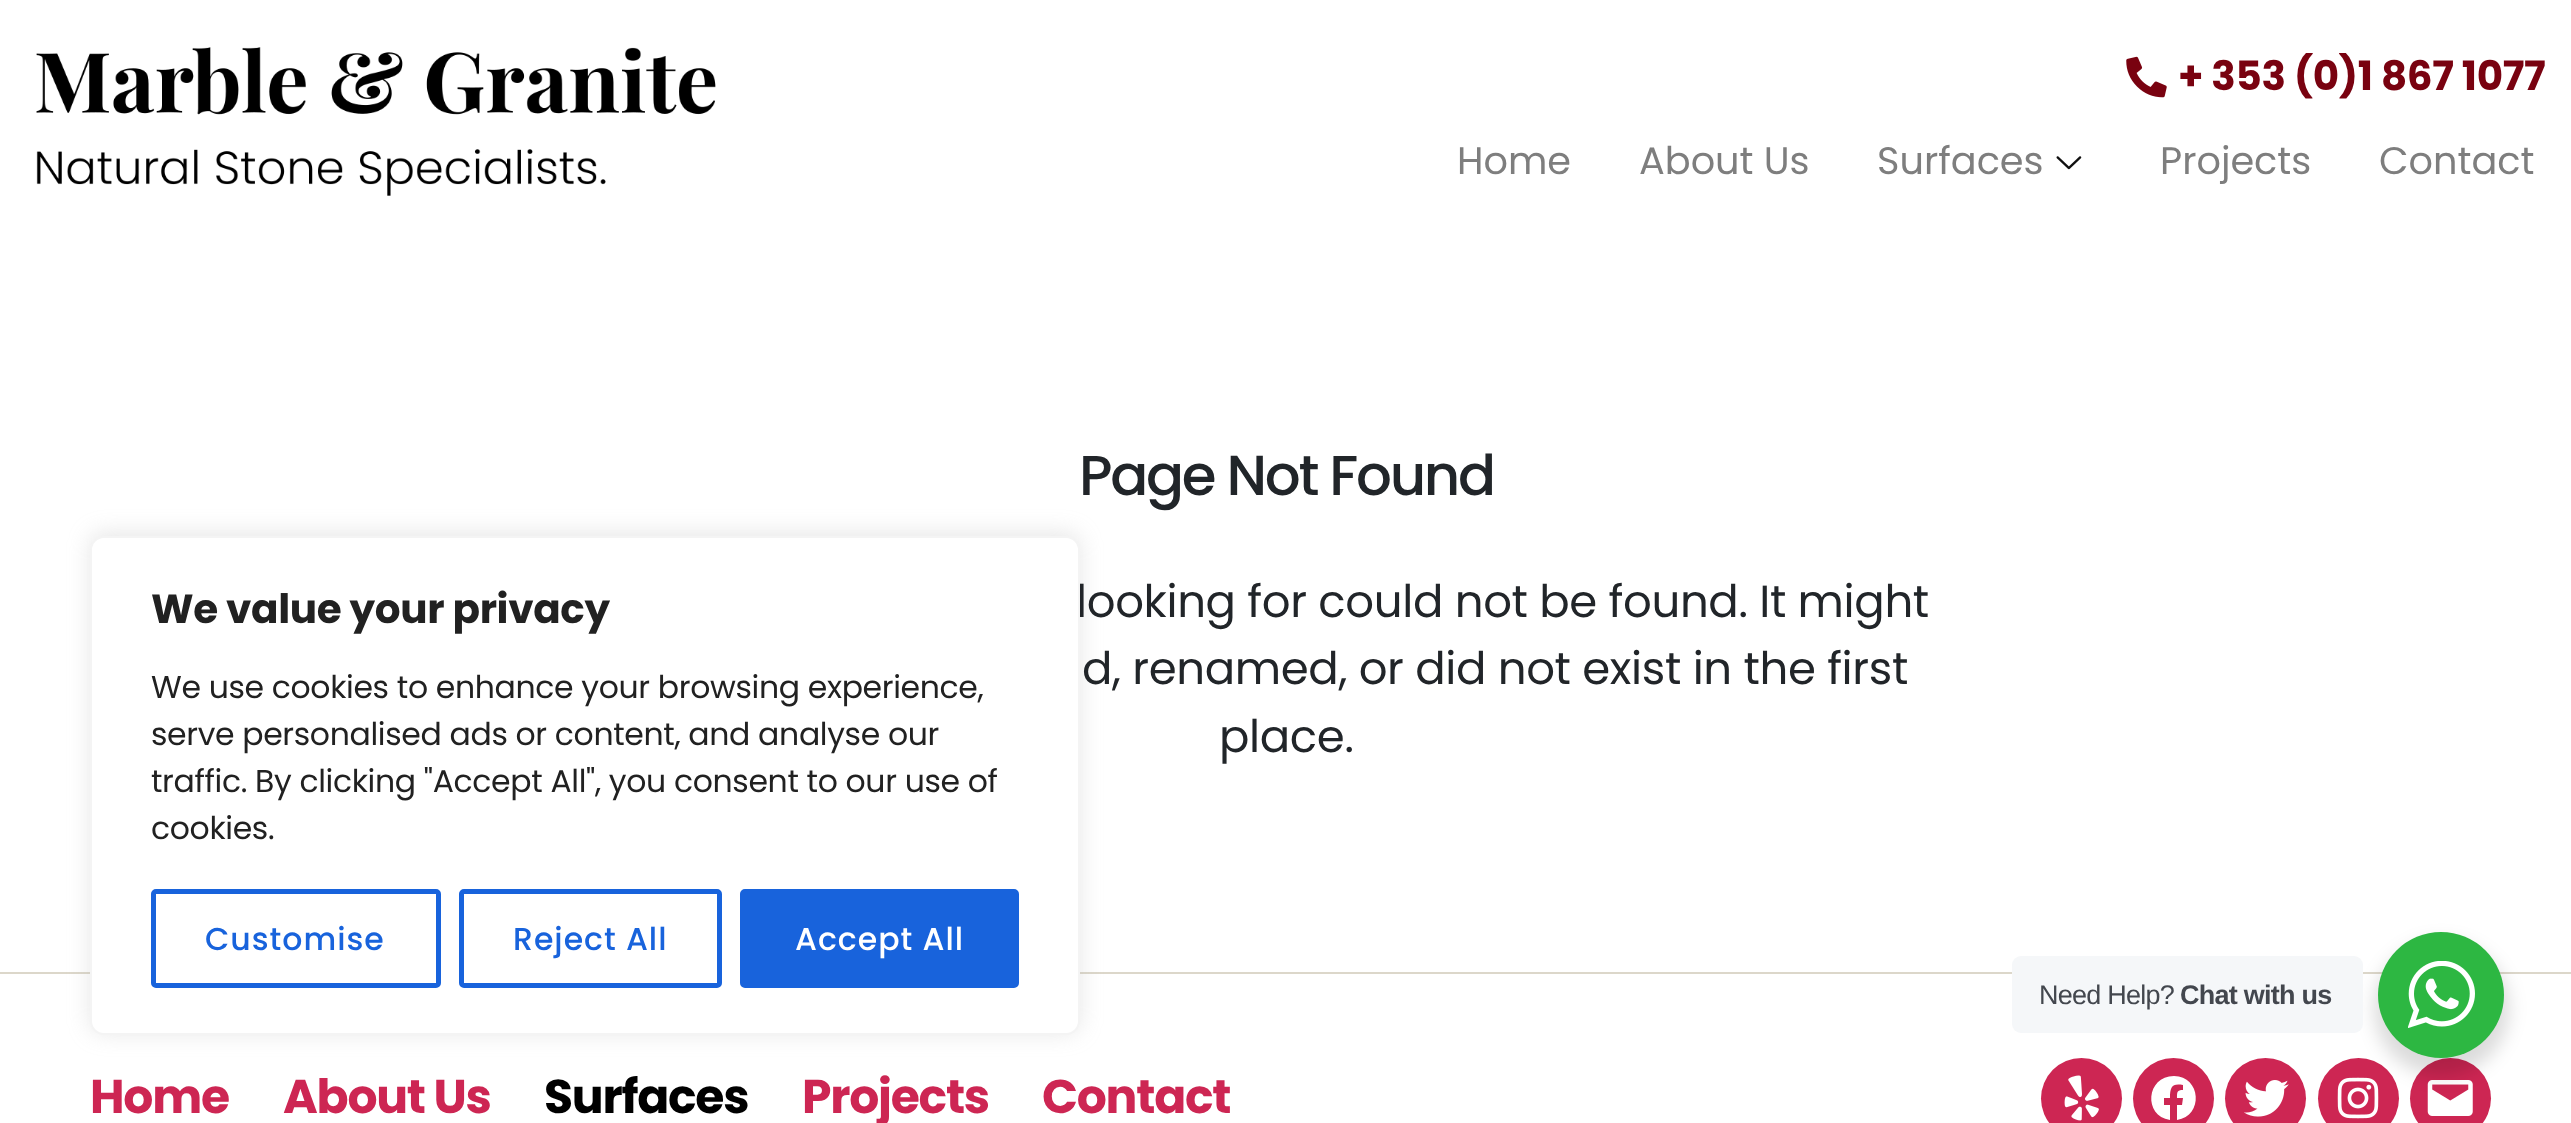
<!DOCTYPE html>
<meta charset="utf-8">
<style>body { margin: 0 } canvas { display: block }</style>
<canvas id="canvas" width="2571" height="1123"></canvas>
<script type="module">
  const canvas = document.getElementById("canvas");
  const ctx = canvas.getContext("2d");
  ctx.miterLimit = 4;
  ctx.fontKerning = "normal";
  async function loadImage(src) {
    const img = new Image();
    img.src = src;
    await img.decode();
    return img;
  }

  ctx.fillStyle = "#ffffff";
  ctx.fillRect(0, 0, 2571, 1123);
  ctx.drawImage(await loadImage("img1.png"), 36, 47, 680, 149);
  ctx.drawImage(await loadImage("img2.png"), 2126, 56, 41, 42);
  ctx.letterSpacing = "-0.35px";
  ctx.font = "bold 40.5px Poppins";
  ctx.fillStyle = "#790210";
  ctx.fillText("+ 353 (0)1 867 1077", 2178, 90);
  ctx.letterSpacing = "0px";
  ctx.font = "38.25px Poppins";
  ctx.fillStyle = "#7e7e7e";
  ctx.fillText("Home", 1457, 174);
  ctx.fillText("About Us", 1639, 174);
  ctx.fillText("Surfaces", 1877, 174);
  ctx.drawImage(await loadImage("img3.png"), 2056, 156, 26, 14);
  ctx.fillText("Projects", 2160, 174);
  ctx.fillText("Contact", 2379, 174);
  ctx.fillStyle = "#dcd7ca";
  ctx.fillRect(0, 972, 2571, 2);
  ctx.fillStyle = "rgba(172, 171, 171, 0.3)";
  ctx.filter = "blur(11px)";
  ctx.beginPath();
  ctx.roundRect(90, 533, 990, 500, 14);
  ctx.fill();
  ctx.filter = "none";
  ctx.letterSpacing = "-0.35px";
  ctx.font = "45px Poppins";
  ctx.fillStyle = "#212529";
  ctx.fillText("looking for could not be found. It might", 1076, 617);
  ctx.fillStyle = "#ffffff";
  ctx.beginPath();
  ctx.roundRect(91, 537, 988, 497, 13);
  ctx.fill();
  ctx.strokeStyle = "#f4f4f4";
  ctx.lineWidth = 2;
  ctx.stroke();
  ctx.font = "bold 40.5px Poppins";
  ctx.fillStyle = "#212121";
  ctx.fillText("We value your privacy", 151, 623);
  ctx.font = "31.5px Poppins";
  ctx.fillText("We use cookies to enhance your browsing experience,", 151, 698);
  ctx.fillText("serve personalised ads or content, and analyse our", 151, 745);
  ctx.fillText("traffic. By clicking \"Accept All\", you consent to our use of", 151, 792);
  ctx.fillText("cookies.", 151, 839);
  ctx.beginPath();
  ctx.roundRect(153.5, 891.5, 285, 94, 2.5);
  ctx.strokeStyle = "#1863dc";
  ctx.lineWidth = 5;
  ctx.stroke();
  ctx.letterSpacing = "1px";
  ctx.font = "500 31.5px Poppins";
  ctx.fillStyle = "#1863dc";
  ctx.fillText("Customise", 205, 950);
  ctx.beginPath();
  ctx.roundRect(461.5, 891.5, 258, 94, 2.5);
  ctx.stroke();
  ctx.fillText("Reject All", 513, 950);
  ctx.beginPath();
  ctx.roundRect(742.5, 891.5, 274, 94, 2.5);
  ctx.fill();
  ctx.stroke();
  ctx.fillStyle = "#ffffff";
  ctx.fillText("Accept All", 795, 950);
  ctx.letterSpacing = "-2.3px";
  ctx.font = "500 56.25px Poppins";
  ctx.fillStyle = "#212529";
  ctx.fillText("Page Not Found", 1079, 495);
  ctx.letterSpacing = "-0.35px";
  ctx.font = "45px Poppins";
  ctx.fillText("d, renamed, or did not exist in the first", 1082, 684);
  ctx.fillText("place.", 1219, 752);
  ctx.fillStyle = "#cd2653";
  ctx.beginPath();
  ctx.arc(2358.5, 1098.5, 40.5, 0, Math.PI * 2);
  ctx.fill();
  ctx.drawImage(await loadImage("img7.png"), 2337, 1077, 42, 42);
  ctx.beginPath();
  ctx.arc(2450.5, 1098.5, 40.5, 0, Math.PI * 2);
  ctx.fill();
  ctx.drawImage(await loadImage("img8.png"), 2427, 1080, 46, 36);
  ctx.fillStyle = "rgba(0, 0, 0, 0.14)";
  ctx.filter = "blur(9px)";
  ctx.beginPath();
  ctx.roundRect(2374, 941, 135, 135, 67.5);
  ctx.fill();
  ctx.filter = "none";
  ctx.fillStyle = "#f5f7f9";
  ctx.beginPath();
  ctx.roundRect(2012, 956, 351, 77, 9);
  ctx.fill();
  ctx.letterSpacing = "-0.75px";
  ctx.font = "27px Liberation Sans";
  ctx.fillStyle = "#43474e";
  ctx.fillText("Need Help?", 2039, 1004);
  ctx.font = "bold 27px Liberation Sans";
  ctx.fillText("Chat with us", 2180, 1004);
  ctx.fillStyle = "#2db742";
  ctx.beginPath();
  ctx.arc(2441, 995, 63, 0, Math.PI * 2);
  ctx.fill();
  ctx.drawImage(await loadImage("img4.png"), 2408, 961, 67, 67);
  ctx.letterSpacing = "-1.25px";
  ctx.font = "bold 47.25px Poppins";
  ctx.fillStyle = "#cd2653";
  ctx.fillText("Home", 90, 1113);
  ctx.fillText("About Us", 283, 1113);
  ctx.fillStyle = "#000000";
  ctx.fillText("Surfaces", 544, 1113);
  ctx.fillStyle = "#cd2653";
  ctx.fillText("Projects", 802, 1113);
  ctx.fillText("Contact", 1042, 1113);
  ctx.beginPath();
  ctx.arc(2081.5, 1098.5, 40.5, 0, Math.PI * 2);
  ctx.fill();
  ctx.drawImage(await loadImage("img5.png"), 2064, 1075, 35, 46);
  ctx.beginPath();
  ctx.arc(2173.5, 1098.5, 40.5, 0, Math.PI * 2);
  ctx.fill();
  ctx.fillStyle = "#ffffff";
  ctx.beginPath();
  ctx.moveTo(2174, 1076);
  ctx.bezierCurveTo(2146, 1076, 2143, 1116, 2170, 1120);
  ctx.lineTo(2170, 1105);
  ctx.lineTo(2164, 1105);
  ctx.lineTo(2164, 1098);
  ctx.lineTo(2170, 1098);
  ctx.bezierCurveTo(2170, 1087, 2172, 1083, 2183, 1085);
  ctx.lineTo(2183, 1090);
  ctx.bezierCurveTo(2177, 1090, 2177, 1092, 2177, 1098);
  ctx.lineTo(2183, 1098);
  ctx.lineTo(2182, 1105);
  ctx.lineTo(2177, 1105);
  ctx.lineTo(2177, 1120);
  ctx.bezierCurveTo(2204, 1116, 2201, 1076, 2174, 1076);
  ctx.closePath();
  ctx.fill();
  ctx.fillStyle = "#cd2653";
  ctx.beginPath();
  ctx.arc(2265.5, 1098.5, 40.5, 0, Math.PI * 2);
  ctx.fill();
  ctx.drawImage(await loadImage("img6.png"), 2244, 1080, 45, 37);
</script>
